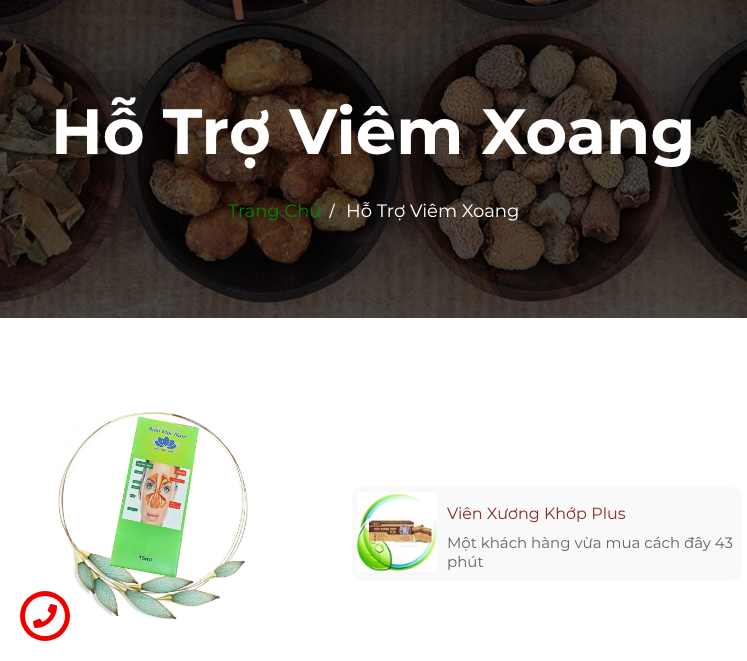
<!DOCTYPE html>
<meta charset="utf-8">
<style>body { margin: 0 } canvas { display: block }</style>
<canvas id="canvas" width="747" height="661"></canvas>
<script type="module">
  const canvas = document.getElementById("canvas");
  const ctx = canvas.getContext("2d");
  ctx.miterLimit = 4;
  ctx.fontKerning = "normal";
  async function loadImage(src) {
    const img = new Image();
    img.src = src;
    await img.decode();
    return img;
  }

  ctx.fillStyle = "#ffffff";
  ctx.fillRect(0, 0, 747, 661);
  ctx.drawImage(await loadImage("img1.png"), 0, 0, 747, 318);
  ctx.font = "bold 64px Montserrat";
  ctx.fillText("Hỗ Trợ Viêm Xoang", 51, 154);
  ctx.font = "18px Montserrat";
  ctx.fillStyle = "#008000";
  ctx.fillText("Trang Chủ", 228, 217);
  ctx.font = "22px Liberation Serif";
  ctx.fillStyle = "#ffffff";
  ctx.fillText("/", 329, 218);
  ctx.font = "18px Montserrat";
  ctx.fillText("Hỗ Trợ Viêm Xoang", 346, 217);
  ctx.drawImage(await loadImage("img2.png"), 58, 411, 190, 209);
  ctx.fillStyle = "#f9f9f9";
  ctx.beginPath();
  ctx.roundRect(352, 487, 390, 94, 10);
  ctx.fill();
  ctx.drawImage(await loadImage("img3.png"), 357, 492, 80, 80);
  ctx.font = "16px Montserrat";
  ctx.fillStyle = "#8a2c2d";
  ctx.fillText("Viên Xương Khớp Plus", 447, 519);
  ctx.font = "15px Montserrat";
  ctx.fillStyle = "#666666";
  ctx.fillText("Một khách hàng vừa mua cách đây 43", 447, 548);
  ctx.fillText("phút", 447, 567);
  ctx.fillStyle = "#ee0000";
  ctx.beginPath();
  ctx.arc(45, 616, 25, 0, Math.PI * 2);
  ctx.fill();
  ctx.fillStyle = "#ffffff";
  ctx.beginPath();
  ctx.arc(45, 616, 20, 0, Math.PI * 2);
  ctx.fill();
  ctx.drawImage(await loadImage("img4.png"), 33, 604, 24, 24);
</script>
